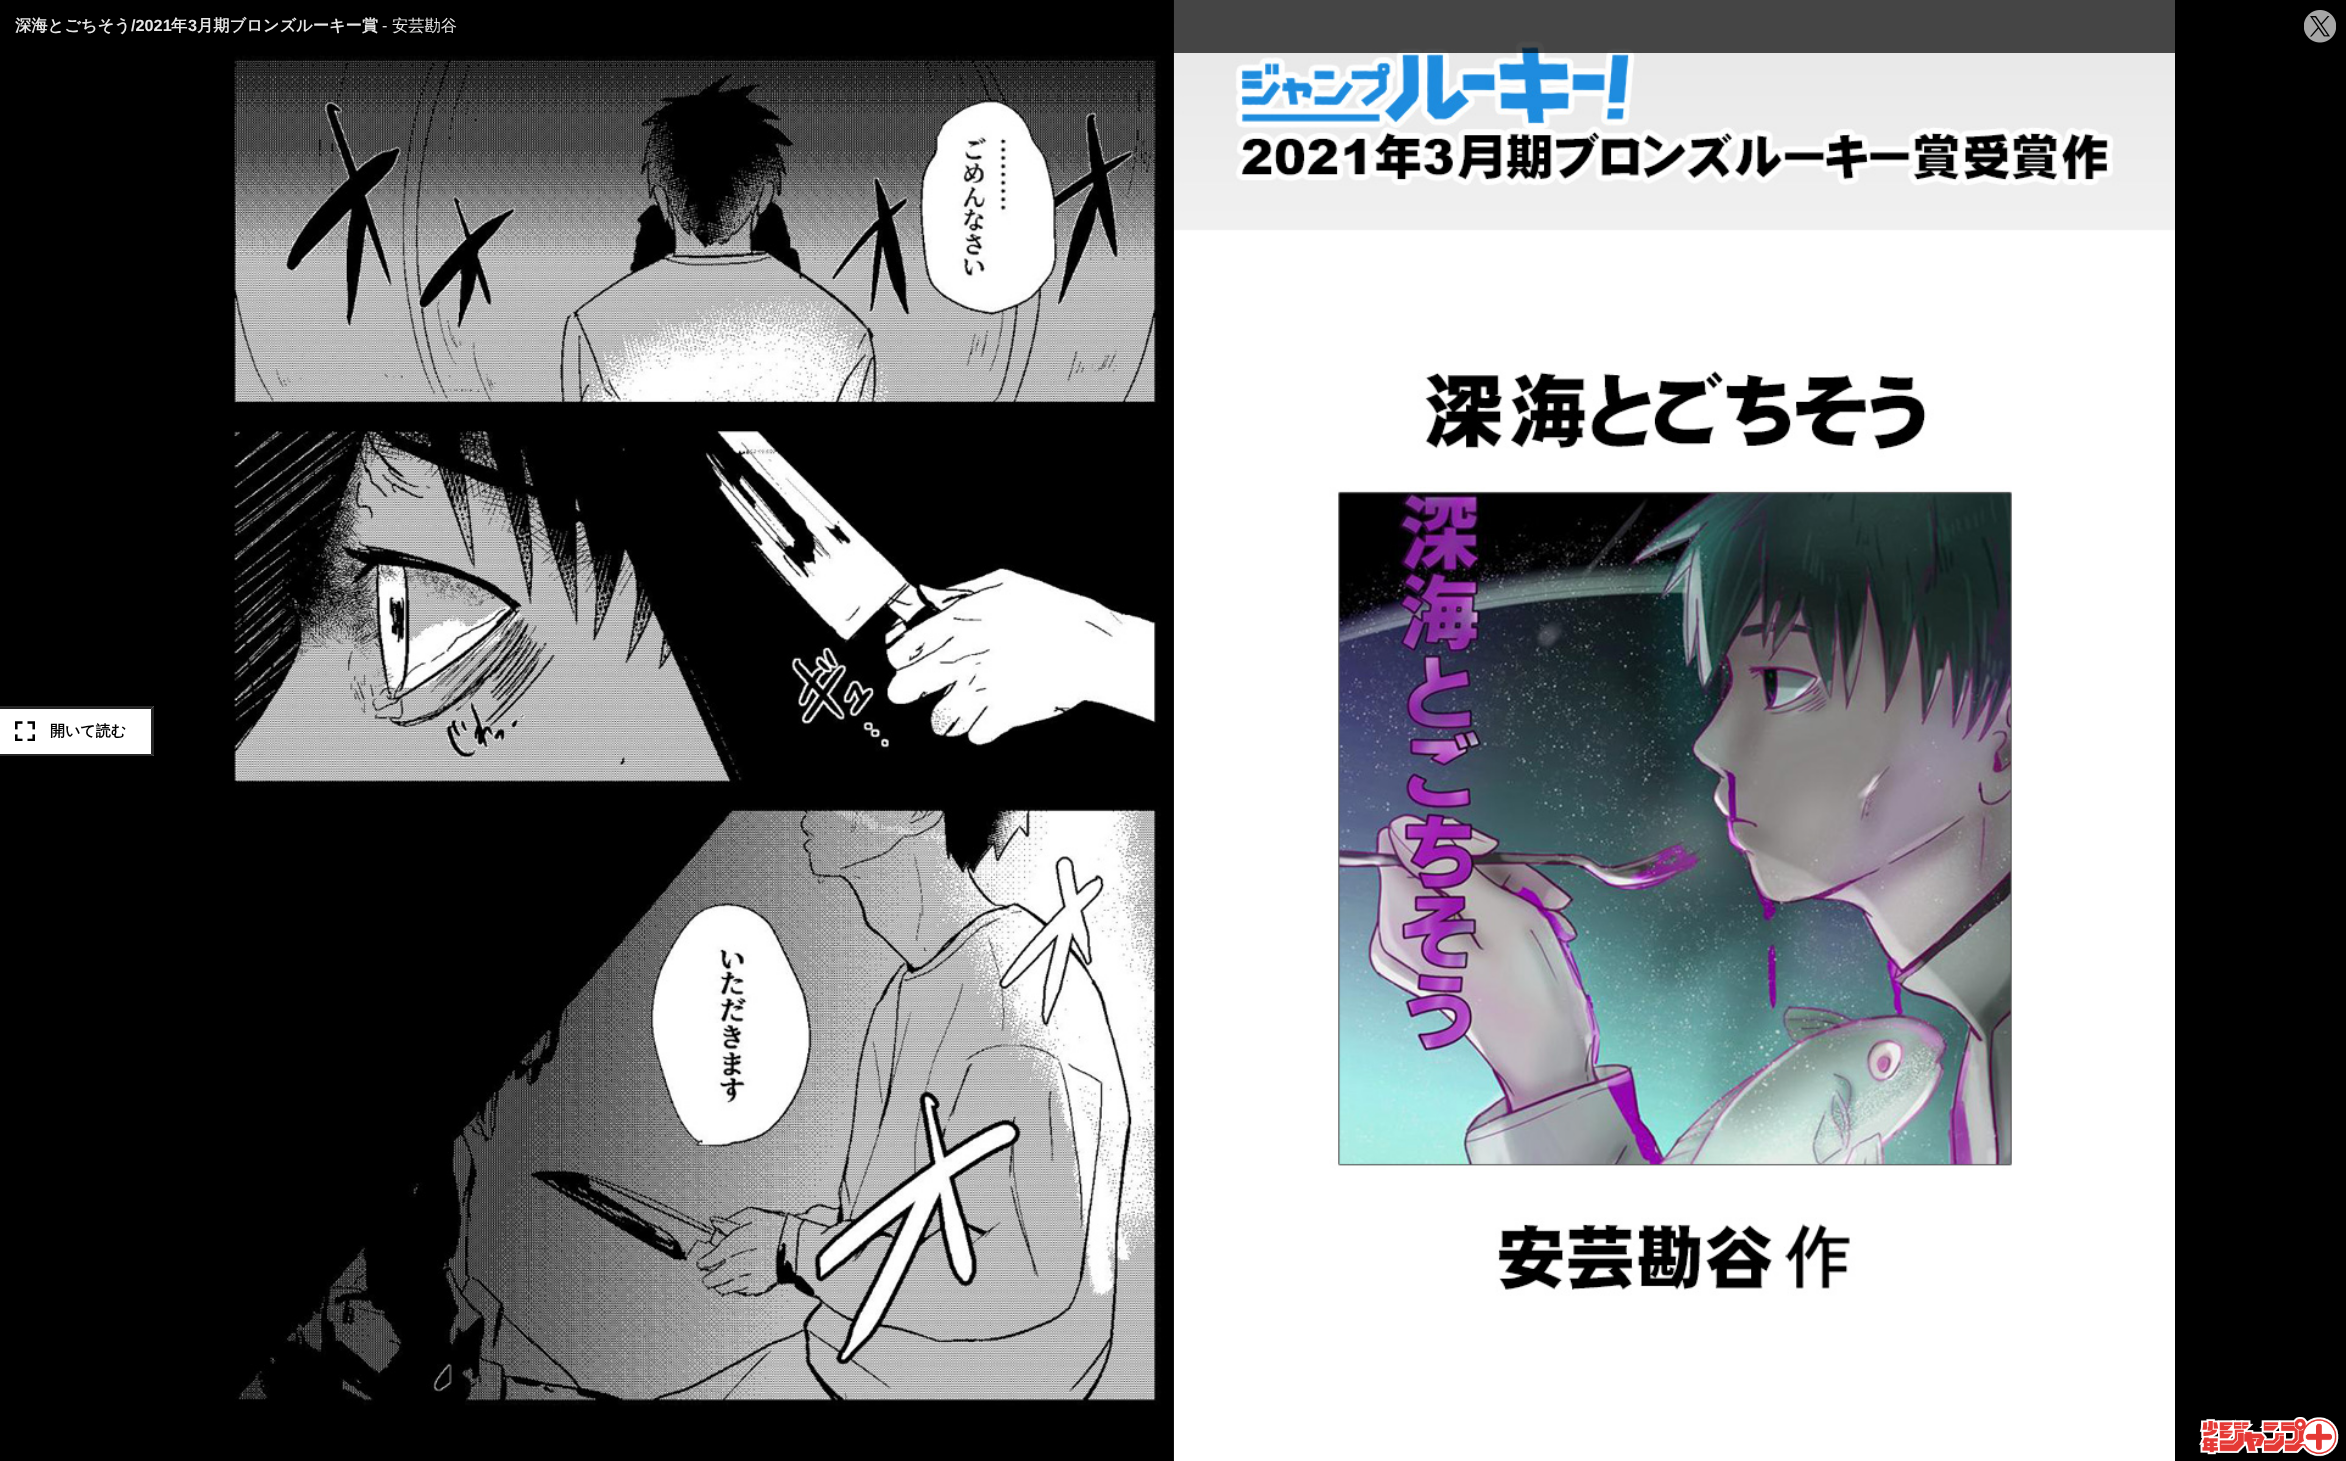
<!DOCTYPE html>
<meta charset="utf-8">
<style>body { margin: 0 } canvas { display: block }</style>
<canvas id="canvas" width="2346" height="1461"></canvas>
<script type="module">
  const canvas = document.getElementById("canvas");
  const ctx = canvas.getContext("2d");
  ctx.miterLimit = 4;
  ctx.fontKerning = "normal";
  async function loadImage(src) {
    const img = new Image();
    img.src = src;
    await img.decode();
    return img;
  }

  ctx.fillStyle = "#000000";
  ctx.fillRect(0, 0, 2346, 1461);
  ctx.drawImage(await loadImage("img2.png"), 1173, 0, 1002, 1461);
  ctx.drawImage(await loadImage("img1.png"), 234, 0, 940, 1461);
  ctx.fillStyle = "rgba(0, 0, 0, 0.7)";
  ctx.fillRect(1173, 0, 1002, 53);
  ctx.font = "bold 16.25px WenQuanYi Zen Hei";
  ctx.fillStyle = "#e6e6e6";
  ctx.fillText("深海とごちそう", 15, 31);
  ctx.font = "bold 16.25px Liberation Sans";
  ctx.fillText("/2021", 131, 31);
  ctx.font = "bold 16.25px WenQuanYi Zen Hei";
  ctx.fillText("年", 171, 31);
  ctx.font = "bold 16.25px Liberation Sans";
  ctx.fillText("3", 188, 31);
  ctx.font = "bold 16.25px WenQuanYi Zen Hei";
  ctx.fillText("月期ブロンズルーキー賞", 197, 31);
  ctx.font = "16.25px Liberation Sans";
  ctx.fillText("-", 382, 31);
  ctx.font = "500 16.25px WenQuanYi Zen Hei";
  ctx.fillText("安芸勘谷", 392, 31);
  ctx.drawImage(await loadImage("img3.png"), 2304, 10, 32, 33);
  ctx.fillStyle = "#ffffff";
  ctx.fillRect(0, 706, 154, 50);
  ctx.fillStyle = "#262626";
  ctx.beginPath();
  ctx.moveTo(0, 706);
  ctx.lineTo(154, 706);
  ctx.lineTo(151, 709);
  ctx.lineTo(0, 709);
  ctx.closePath();
  ctx.fill();
  ctx.fillStyle = "rgba(0, 0, 0, 0.85)";
  ctx.beginPath();
  ctx.moveTo(154, 706);
  ctx.lineTo(154, 756);
  ctx.lineTo(151, 754);
  ctx.lineTo(151, 709);
  ctx.closePath();
  ctx.fill();
  ctx.beginPath();
  ctx.moveTo(154, 756);
  ctx.lineTo(0, 756);
  ctx.lineTo(0, 754);
  ctx.lineTo(151, 754);
  ctx.closePath();
  ctx.fill();
  ctx.drawImage(await loadImage("img4.png"), 15, 721, 20, 20);
  ctx.font = "bold 15px WenQuanYi Zen Hei";
  ctx.fillStyle = "#000000";
  ctx.fillText("開いて読む", 50, 736);
  ctx.drawImage(await loadImage("img5.png"), 2199, 1417, 140, 40);
</script>
